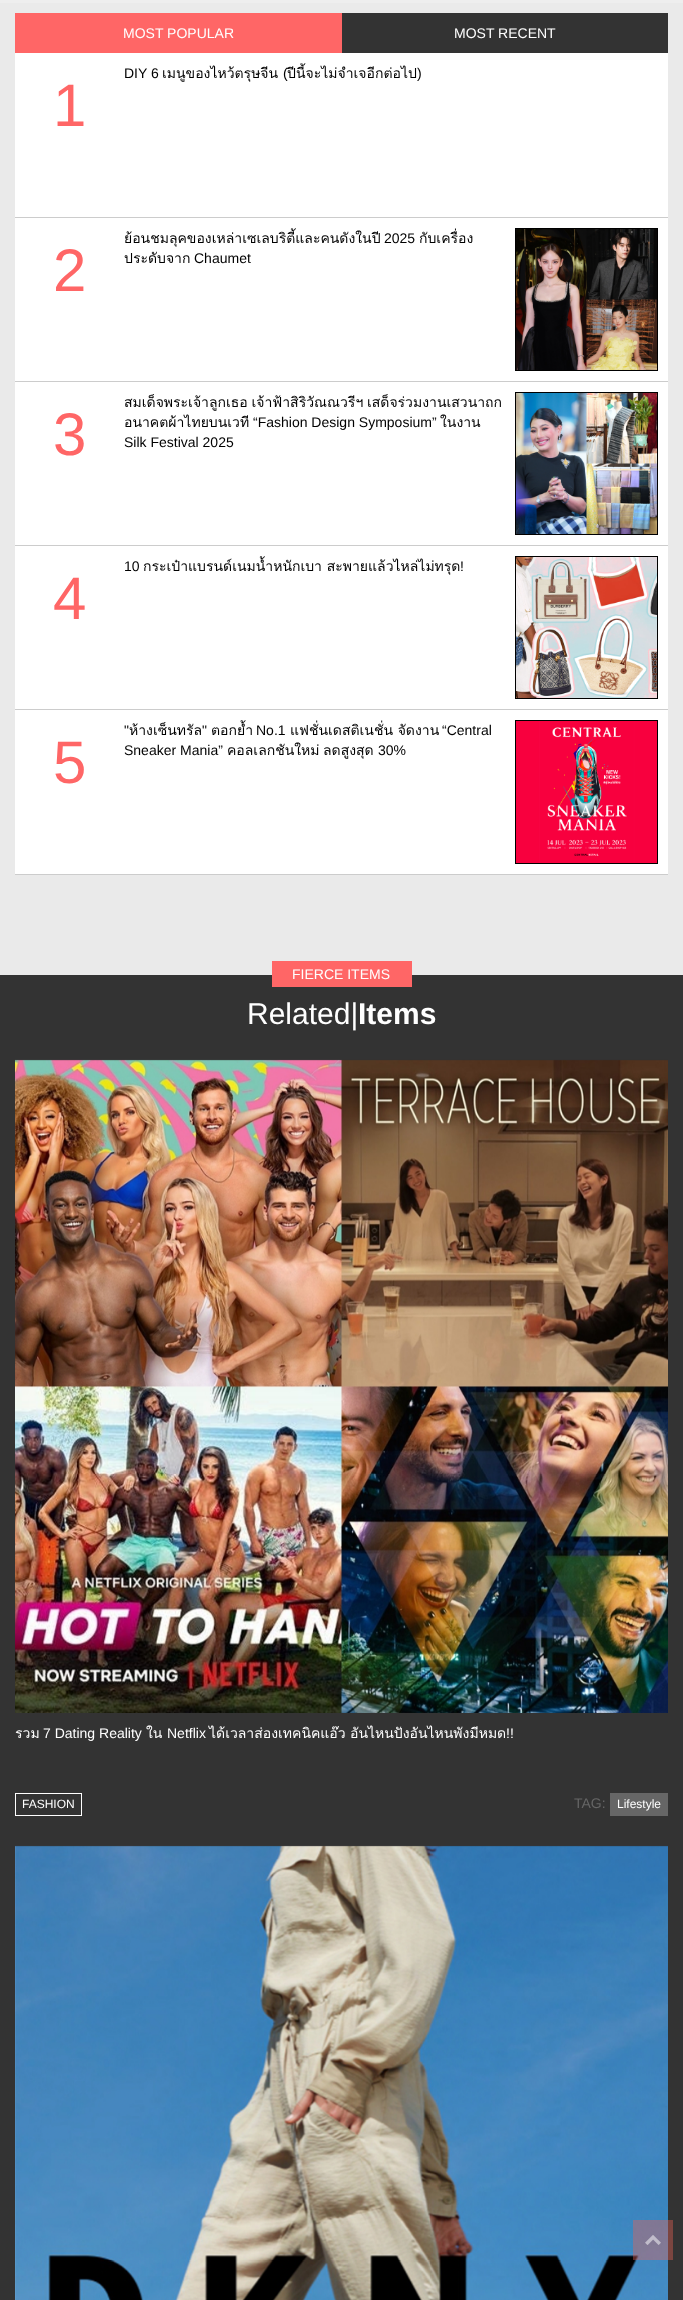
<!DOCTYPE html>
<meta charset="utf-8">
<style>body { margin: 0 } canvas { display: block }</style>
<canvas id="canvas" width="683" height="2300"></canvas>
<script type="module">
  const canvas = document.getElementById("canvas");
  const ctx = canvas.getContext("2d");
  ctx.miterLimit = 4;
  ctx.fontKerning = "normal";
  async function loadImage(src) {
    const img = new Image();
    img.src = src;
    await img.decode();
    return img;
  }

  ctx.fillStyle = "#eaeaea";
  ctx.fillRect(0, 0, 683, 2300);
  ctx.fillStyle = "#eeeeee";
  ctx.fillRect(0, 0, 683, 3);
  ctx.fillStyle = "#ffffff";
  ctx.fillRect(15, 53, 653, 821);
  ctx.fillStyle = "#ff6666";
  ctx.fillRect(15, 13, 327, 40);
  ctx.font = "14px Liberation Sans";
  ctx.fillStyle = "#ffffff";
  ctx.fillText("MOST POPULAR", 123, 38);
  ctx.fillStyle = "#333333";
  ctx.fillRect(342, 13, 326, 40);
  ctx.fillStyle = "#ffffff";
  ctx.fillText("MOST RECENT", 454, 38);
  ctx.fillStyle = "#cccccc";
  ctx.fillRect(15, 217, 653, 1);
  ctx.font = "14px Loma";
  ctx.fillStyle = "#000000";
  ctx.fillText("เมนูของไหว้ตรุษจีน", 162, 78);
  ctx.font = "14px Liberation Sans";
  ctx.fillText("(", 283, 78);
  ctx.font = "14px Loma";
  ctx.fillText("ปีนี้จะไม่จำเจอีกต่อไป", 287, 78);
  ctx.font = "14px Liberation Sans";
  ctx.fillText("DIY 6", 124, 78);
  ctx.fillText(")", 417, 78);
  ctx.font = "60px Liberation Sans";
  ctx.fillStyle = "#ff6666";
  ctx.fillText("1", 53, 126);
  ctx.fillStyle = "#cccccc";
  ctx.fillRect(15, 381, 653, 1);
  ctx.fillStyle = "#ff6666";
  ctx.fillText("2", 53, 291);
  ctx.font = "14px Loma";
  ctx.fillStyle = "#000000";
  ctx.fillText("ย้อนชมลุคของเหล่าเซเลบริตี้และคนดังในปี", 124, 243);
  ctx.font = "14px Liberation Sans";
  ctx.fillText("2025", 384, 243);
  ctx.font = "14px Loma";
  ctx.fillText("กับเครื่อง", 419, 243);
  ctx.fillText("ประดับจาก", 124, 263);
  ctx.font = "14px Liberation Sans";
  ctx.fillText("Chaumet", 194, 263);
  ctx.strokeStyle = "#000000";
  ctx.strokeRect(515.5, 228.5, 142, 142);
  ctx.drawImage(await loadImage("img1.png"), 516, 229, 141, 141);
  ctx.fillStyle = "#cccccc";
  ctx.fillRect(15, 545, 653, 1);
  ctx.font = "60px Liberation Sans";
  ctx.fillStyle = "#ff6666";
  ctx.fillText("3", 53, 455);
  ctx.wordSpacing = "-1px";
  ctx.font = "14px Loma";
  ctx.fillStyle = "#000000";
  ctx.fillText("สมเด็จพระเจ้าลูกเธอ เจ้าฟ้าสิริวัณณวรีฯ เสด็จร่วมงานเสวนาถก", 124, 407);
  ctx.wordSpacing = "0px";
  ctx.fillText("อนาคตผ้าไทยบนเวที", 124, 427);
  ctx.font = "14px Liberation Sans";
  ctx.fillText("“Fashion Design Symposium”", 253, 427);
  ctx.font = "14px Loma";
  ctx.fillText("ในงาน", 440, 427);
  ctx.font = "14px Liberation Sans";
  ctx.fillText("Silk Festival 2025", 124, 447);
  ctx.strokeRect(515.5, 392.5, 142, 142);
  ctx.drawImage(await loadImage("img2.png"), 516, 393, 141, 141);
  ctx.fillStyle = "#cccccc";
  ctx.fillRect(15, 709, 653, 1);
  ctx.font = "60px Liberation Sans";
  ctx.fillStyle = "#ff6666";
  ctx.fillText("4", 53, 619);
  ctx.font = "14px Liberation Sans";
  ctx.fillStyle = "#000000";
  ctx.fillText("10", 124, 571);
  ctx.font = "14px Loma";
  ctx.fillText("กระเป๋าแบรนด์เนมน้ำหนักเบา สะพายแล้วไหล่ไม่ทรุด", 143, 571);
  ctx.font = "14px Liberation Sans";
  ctx.fillText("!", 460, 571);
  ctx.strokeRect(515.5, 556.5, 142, 142);
  ctx.drawImage(await loadImage("img3.png"), 516, 557, 141, 141);
  ctx.fillStyle = "#cccccc";
  ctx.fillRect(15, 874, 653, 1);
  ctx.font = "60px Liberation Sans";
  ctx.fillStyle = "#ff6666";
  ctx.fillText("5", 53, 783);
  ctx.font = "14px Liberation Sans";
  ctx.fillStyle = "#000000";
  ctx.fillText("\"", 124, 735);
  ctx.font = "14px Loma";
  ctx.fillText("ห้างเซ็นทรัล", 129, 735);
  ctx.fillText("ตอกย้ำ", 211, 735);
  ctx.fillText("แฟชั่นเดสติเนชั่น จัดงาน", 290, 735);
  ctx.font = "14px Liberation Sans";
  ctx.fillText("“Central", 442, 735);
  ctx.fillText("\"", 202, 735);
  ctx.fillText("No.1", 256, 735);
  ctx.fillText("Sneaker Mania”", 124, 755);
  ctx.font = "14px Loma";
  ctx.fillText("คอลเลกชันใหม่", 227, 755);
  ctx.fillText("ลดสูงสุด", 323, 755);
  ctx.font = "14px Liberation Sans";
  ctx.fillText("30%", 378, 755);
  ctx.strokeRect(515.5, 720.5, 142, 143);
  ctx.drawImage(await loadImage("img4.png"), 516, 721, 141, 142);
  ctx.fillStyle = "#333333";
  ctx.fillRect(0, 975, 683, 1325);
  ctx.fillStyle = "#ff6666";
  ctx.fillRect(272, 961, 140, 26);
  ctx.fillStyle = "#ffffff";
  ctx.fillText("FIERCE ITEMS", 292, 979);
  ctx.font = "30px Liberation Sans";
  ctx.fillText("Related|", 247, 1024);
  ctx.font = "bold 30px Liberation Sans";
  ctx.fillText("Items", 358, 1024);
  ctx.drawImage(await loadImage("img5.png"), 15, 1059, 653, 654);
  ctx.font = "14px Loma";
  ctx.fillText("รวม", 15, 1738);
  ctx.font = "14px Liberation Sans";
  ctx.fillText("7 Dating Reality", 43, 1738);
  ctx.font = "14px Loma";
  ctx.fillText("ใน", 146, 1738);
  ctx.font = "14px Liberation Sans";
  ctx.fillText("Netflix", 167, 1738);
  ctx.font = "14px Loma";
  ctx.fillText("ได้เวลาส่องเทคนิคแอ๊ว", 209, 1738);
  ctx.fillText("อันไหนปังอันไหนพังมีหมด", 350, 1738);
  ctx.font = "14px Liberation Sans";
  ctx.fillText("!!", 506, 1738);
  ctx.strokeStyle = "#ffffff";
  ctx.strokeRect(15.5, 1793.5, 66, 22);
  ctx.font = "12px Liberation Sans";
  ctx.fillText("FASHION", 22, 1808);
  ctx.font = "14px Liberation Sans";
  ctx.fillStyle = "#666666";
  ctx.fillText("TAG:", 574, 1808);
  ctx.fillRect(610, 1793, 58, 23);
  ctx.font = "12px Liberation Sans";
  ctx.fillStyle = "#ffffff";
  ctx.fillText("Lifestyle", 617, 1808);
  ctx.drawImage(await loadImage("img6.png"), 15, 1845, 653, 455);
  ctx.fillStyle = "rgba(232, 98, 86, 0.4)";
  ctx.fillRect(633, 2220, 40, 40);
  ctx.drawImage(await loadImage("img7.png"), 645, 2235, 16, 10);
</script>
